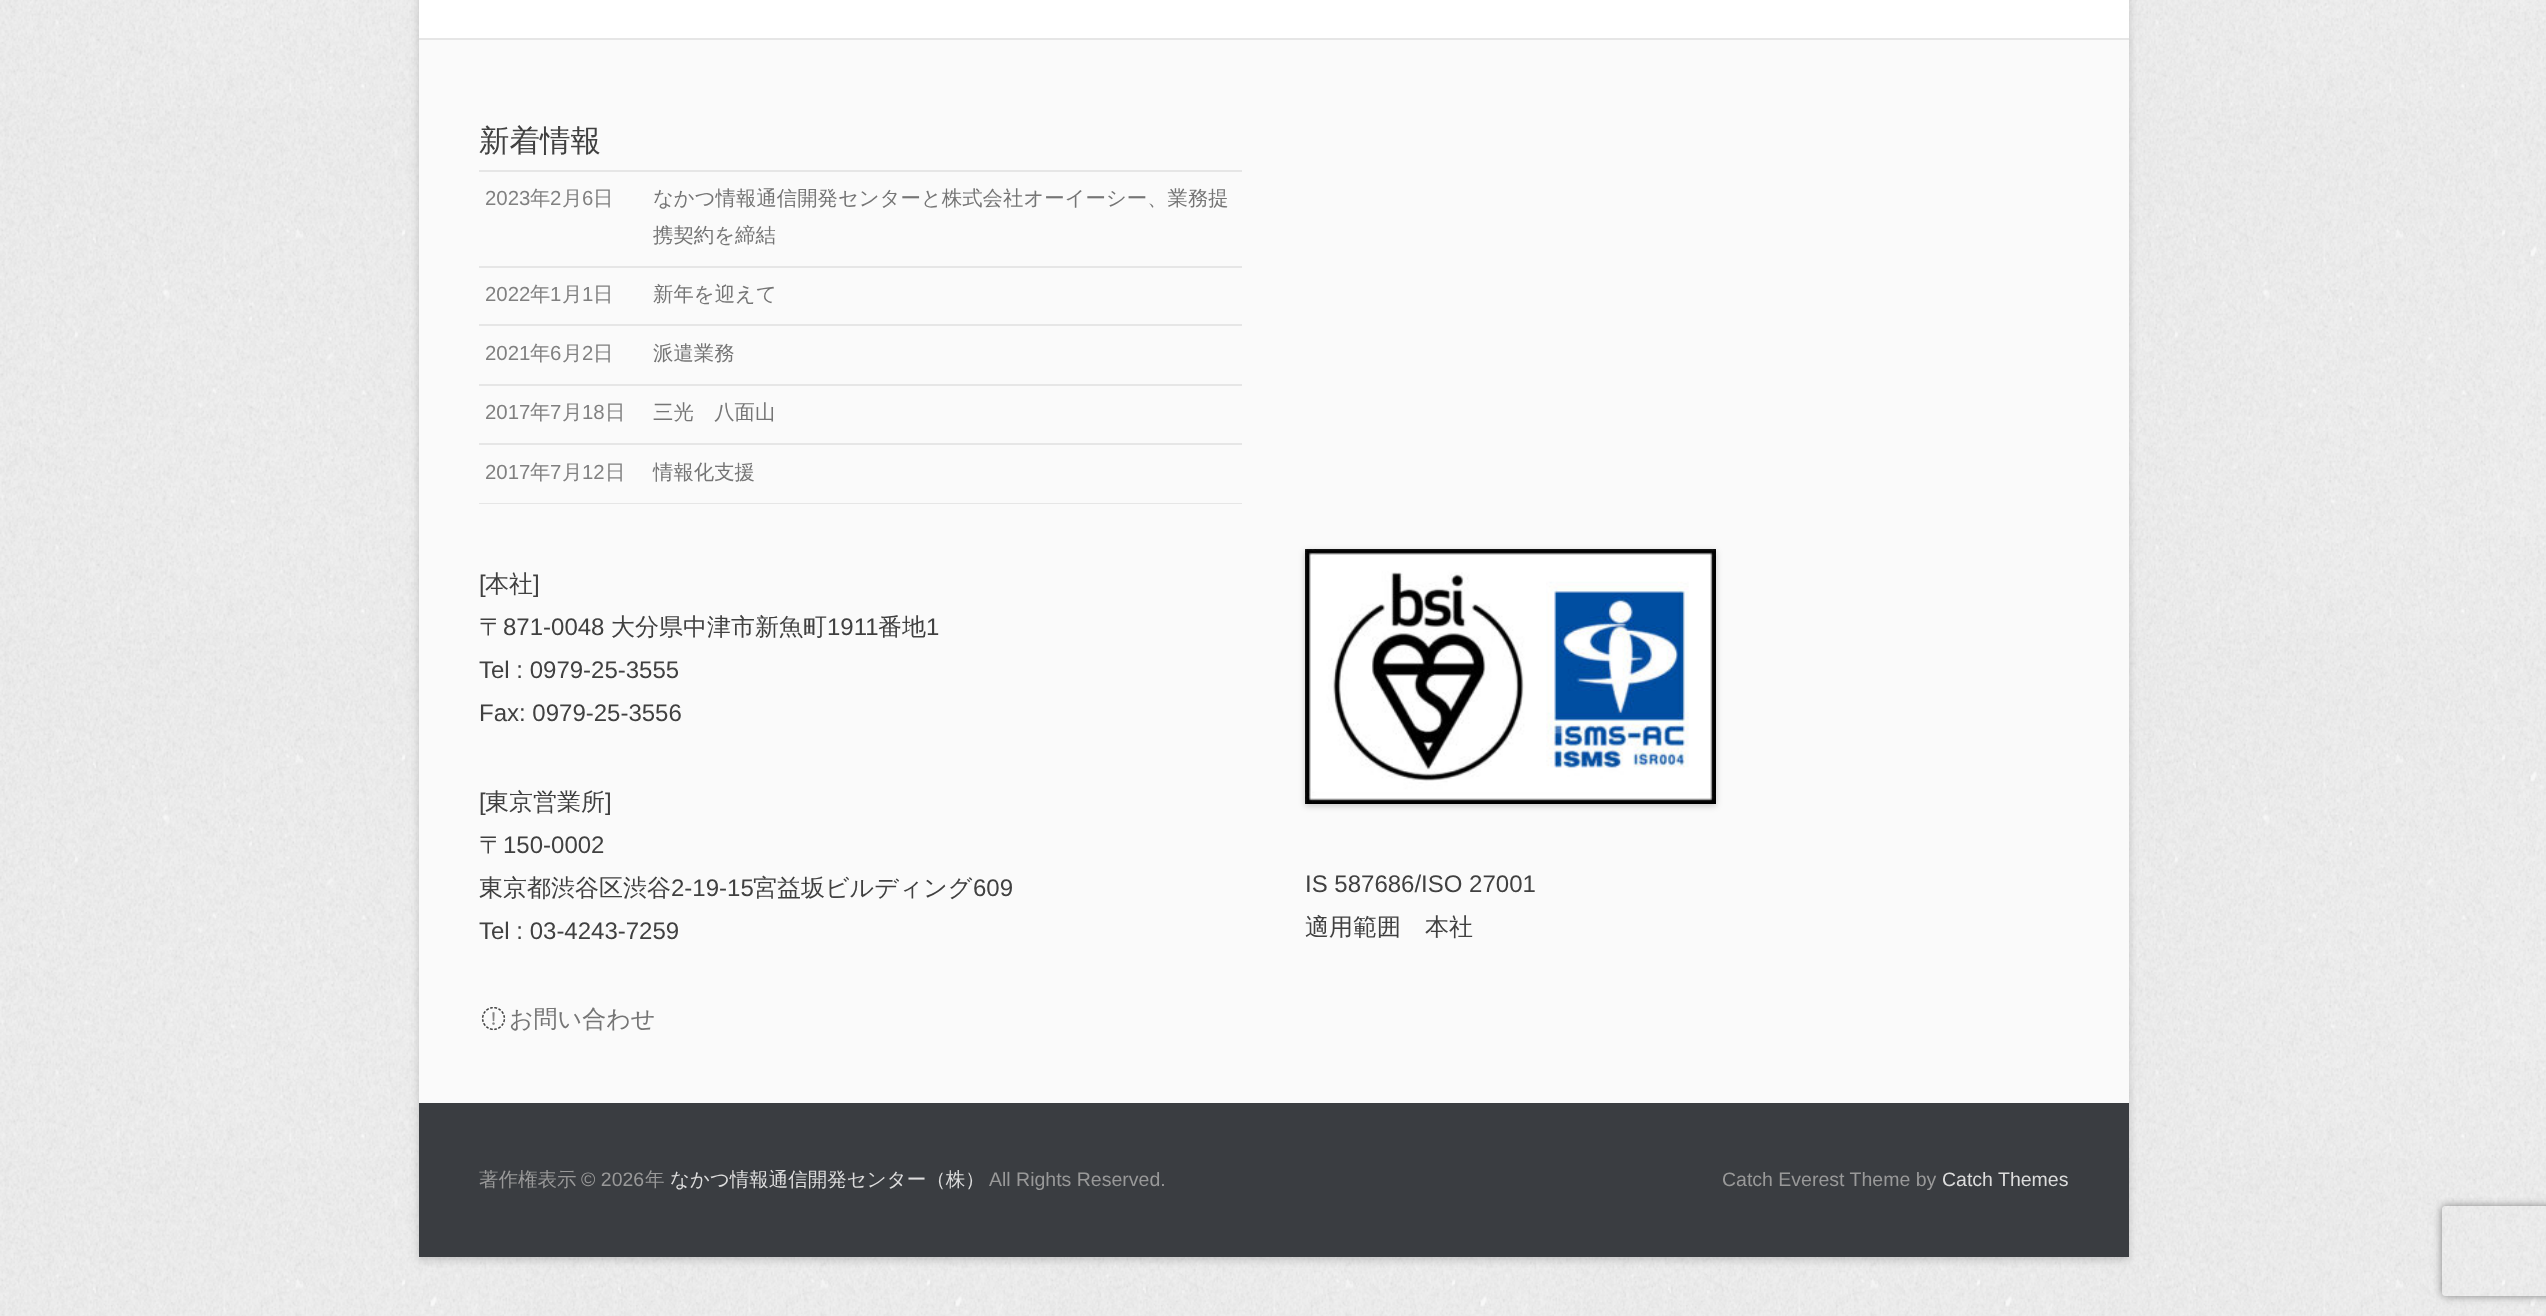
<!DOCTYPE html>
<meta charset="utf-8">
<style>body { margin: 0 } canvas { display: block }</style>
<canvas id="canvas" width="2546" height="1316"></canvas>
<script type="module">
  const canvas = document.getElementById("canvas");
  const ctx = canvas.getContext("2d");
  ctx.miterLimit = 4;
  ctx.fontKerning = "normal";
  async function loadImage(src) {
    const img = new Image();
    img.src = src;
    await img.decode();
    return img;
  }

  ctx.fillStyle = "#ffffff";
  ctx.fillRect(0, 0, 2546, 1316);
  ctx.drawImage(await loadImage("img1.png"), 0, 0, 2546, 1316);
  ctx.fillStyle = "rgba(100, 100, 100, 0.3)";
  ctx.filter = "blur(4.5px)";
  ctx.beginPath();
  ctx.rect(419, -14, 1710, 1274);
  ctx.fill();
  ctx.filter = "none";
  ctx.fillStyle = "#ffffff";
  ctx.fillRect(419, 0, 1710, 38);
  ctx.fillStyle = "#fafafa";
  ctx.fillRect(419, 40, 1710, 1063);
  ctx.fillStyle = "#e6e6e6";
  ctx.fillRect(419, 38, 1710, 2);
  ctx.font = "500 30.5px WenQuanYi Zen Hei";
  ctx.fillStyle = "#404040";
  ctx.fillText("新着情報", 479, 151);
  ctx.fillStyle = "#e6e6e6";
  ctx.fillRect(479, 170, 763, 2);
  ctx.font = "20.4px Liberation Sans";
  ctx.fillStyle = "#808080";
  ctx.fillText("2023", 485, 205);
  ctx.font = "500 20.4px WenQuanYi Zen Hei";
  ctx.fillText("年", 530, 205);
  ctx.font = "20.4px Liberation Sans";
  ctx.fillText("2", 550, 205);
  ctx.font = "500 20.4px WenQuanYi Zen Hei";
  ctx.fillText("月", 562, 205);
  ctx.font = "20.4px Liberation Sans";
  ctx.fillText("6", 582, 205);
  ctx.font = "500 20.4px WenQuanYi Zen Hei";
  ctx.fillText("日", 593, 205);
  ctx.fillStyle = "#757575";
  ctx.fillText("なかつ情報通信開発センターと株式会社オーイーシー、業務提", 653, 205);
  ctx.fillText("携契約を締結", 653, 242);
  ctx.fillStyle = "#e6e6e6";
  ctx.fillRect(479, 266, 763, 2);
  ctx.font = "20.4px Liberation Sans";
  ctx.fillStyle = "#808080";
  ctx.fillText("2022", 485, 301);
  ctx.font = "500 20.4px WenQuanYi Zen Hei";
  ctx.fillText("年", 530, 301);
  ctx.font = "20.4px Liberation Sans";
  ctx.fillText("1", 550, 301);
  ctx.font = "500 20.4px WenQuanYi Zen Hei";
  ctx.fillText("月", 562, 301);
  ctx.font = "20.4px Liberation Sans";
  ctx.fillText("1", 582, 301);
  ctx.font = "500 20.4px WenQuanYi Zen Hei";
  ctx.fillText("日", 593, 301);
  ctx.fillStyle = "#757575";
  ctx.fillText("新年を迎えて", 653, 301);
  ctx.fillStyle = "#e6e6e6";
  ctx.fillRect(479, 324, 763, 2);
  ctx.font = "20.4px Liberation Sans";
  ctx.fillStyle = "#808080";
  ctx.fillText("2021", 485, 360);
  ctx.font = "500 20.4px WenQuanYi Zen Hei";
  ctx.fillText("年", 530, 360);
  ctx.font = "20.4px Liberation Sans";
  ctx.fillText("6", 550, 360);
  ctx.font = "500 20.4px WenQuanYi Zen Hei";
  ctx.fillText("月", 562, 360);
  ctx.font = "20.4px Liberation Sans";
  ctx.fillText("2", 582, 360);
  ctx.font = "500 20.4px WenQuanYi Zen Hei";
  ctx.fillText("日", 593, 360);
  ctx.fillStyle = "#757575";
  ctx.fillText("派遣業務", 653, 360);
  ctx.fillStyle = "#e6e6e6";
  ctx.fillRect(479, 384, 763, 2);
  ctx.font = "20.4px Liberation Sans";
  ctx.fillStyle = "#808080";
  ctx.fillText("2017", 485, 419);
  ctx.font = "500 20.4px WenQuanYi Zen Hei";
  ctx.fillText("年", 530, 419);
  ctx.font = "20.4px Liberation Sans";
  ctx.fillText("7", 550, 419);
  ctx.font = "500 20.4px WenQuanYi Zen Hei";
  ctx.fillText("月", 562, 419);
  ctx.font = "20.4px Liberation Sans";
  ctx.fillText("18", 582, 419);
  ctx.font = "500 20.4px WenQuanYi Zen Hei";
  ctx.fillText("日", 605, 419);
  ctx.fillStyle = "#757575";
  ctx.fillText("三光　八面山", 653, 419);
  ctx.fillStyle = "#e6e6e6";
  ctx.fillRect(479, 443, 763, 2);
  ctx.font = "20.4px Liberation Sans";
  ctx.fillStyle = "#808080";
  ctx.fillText("2017", 485, 479);
  ctx.font = "500 20.4px WenQuanYi Zen Hei";
  ctx.fillText("年", 530, 479);
  ctx.font = "20.4px Liberation Sans";
  ctx.fillText("7", 550, 479);
  ctx.font = "500 20.4px WenQuanYi Zen Hei";
  ctx.fillText("月", 562, 479);
  ctx.font = "20.4px Liberation Sans";
  ctx.fillText("12", 582, 479);
  ctx.font = "500 20.4px WenQuanYi Zen Hei";
  ctx.fillText("日", 605, 479);
  ctx.fillStyle = "#757575";
  ctx.fillText("情報化支援", 653, 479);
  ctx.fillStyle = "#e6e6e6";
  ctx.fillRect(479, 503, 763, 1);
  ctx.font = "24px Liberation Sans";
  ctx.fillStyle = "#404040";
  ctx.fillText("[", 479, 592);
  ctx.font = "500 24px WenQuanYi Zen Hei";
  ctx.fillText("本社", 485, 592);
  ctx.font = "24px Liberation Sans";
  ctx.fillText("]", 533, 592);
  ctx.font = "500 24px WenQuanYi Zen Hei";
  ctx.fillText("〒", 479, 635);
  ctx.font = "24px Liberation Sans";
  ctx.fillText("871-0048", 503, 635);
  ctx.font = "500 24px WenQuanYi Zen Hei";
  ctx.fillText("大分県中津市新魚町", 611, 635);
  ctx.font = "24px Liberation Sans";
  ctx.fillText("1911", 827, 635);
  ctx.font = "500 24px WenQuanYi Zen Hei";
  ctx.fillText("番地", 878, 635);
  ctx.font = "24px Liberation Sans";
  ctx.fillText("1", 926, 635);
  ctx.fillText("Tel : 0979-25-3555", 479, 678);
  ctx.fillText("Fax: 0979-25-3556", 479, 721);
  ctx.fillText("[", 479, 810);
  ctx.font = "500 24px WenQuanYi Zen Hei";
  ctx.fillText("東京営業所", 485, 810);
  ctx.font = "24px Liberation Sans";
  ctx.fillText("]", 605, 810);
  ctx.font = "500 24px WenQuanYi Zen Hei";
  ctx.fillText("〒", 479, 853);
  ctx.font = "24px Liberation Sans";
  ctx.fillText("150-0002", 503, 853);
  ctx.font = "500 24px WenQuanYi Zen Hei";
  ctx.fillText("東京都渋谷区渋谷", 479, 896);
  ctx.font = "24px Liberation Sans";
  ctx.fillText("2-19-15", 671, 896);
  ctx.font = "500 24px WenQuanYi Zen Hei";
  ctx.fillText("宮益坂ビルディング", 753, 896);
  ctx.font = "24px Liberation Sans";
  ctx.fillText("609", 973, 896);
  ctx.fillText("Tel : 03-4243-7259", 479, 939);
  ctx.drawImage(await loadImage("img2.png"), 481, 1007, 25, 24);
  ctx.font = "500 24px WenQuanYi Zen Hei";
  ctx.fillStyle = "#757575";
  ctx.fillText("お問い合わせ", 509, 1027);
  ctx.fillStyle = "rgba(0, 0, 0, 0.2)";
  ctx.filter = "blur(3px)";
  ctx.beginPath();
  ctx.rect(1305, 551, 411, 255);
  ctx.fill();
  ctx.filter = "none";
  ctx.drawImage(await loadImage("img3.png"), 1305, 549, 411, 255);
  ctx.font = "24px Liberation Sans";
  ctx.fillStyle = "#404040";
  ctx.fillText("IS 587686/ISO 27001", 1305, 892);
  ctx.font = "500 24px WenQuanYi Zen Hei";
  ctx.fillText("適用範囲　本社", 1305, 935);
  ctx.fillStyle = "#3a3d41";
  ctx.fillRect(419, 1103, 1710, 154);
  ctx.font = "500 19.5px WenQuanYi Zen Hei";
  ctx.fillStyle = "#999999";
  ctx.fillText("著作権表示", 479, 1186);
  ctx.font = "19.5px Liberation Sans";
  ctx.fillText("© 2026", 581, 1186);
  ctx.font = "500 19.5px WenQuanYi Zen Hei";
  ctx.fillText("年", 645, 1186);
  ctx.fillStyle = "#dddddd";
  ctx.fillText("なかつ情報通信開発センター（株）", 670, 1186);
  ctx.font = "19.5px Liberation Sans";
  ctx.fillStyle = "#999999";
  ctx.fillText("All Rights Reserved.", 989, 1186);
  ctx.fillText("Catch Everest Theme by", 1722, 1186);
  ctx.fillStyle = "#dddddd";
  ctx.fillText("Catch Themes", 1942, 1186);
  ctx.save();
  ctx.beginPath();
  ctx.moveTo(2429, 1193);
  ctx.lineTo(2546, 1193);
  ctx.lineTo(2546, 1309);
  ctx.lineTo(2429, 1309);
  ctx.closePath();
  ctx.moveTo(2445, 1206);
  ctx.lineTo(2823, 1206);
  ctx.bezierCurveTo(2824.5, 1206, 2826, 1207.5, 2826, 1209);
  ctx.lineTo(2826, 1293);
  ctx.bezierCurveTo(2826, 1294.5, 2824.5, 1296, 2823, 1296);
  ctx.lineTo(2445, 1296);
  ctx.bezierCurveTo(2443.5, 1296, 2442, 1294.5, 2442, 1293);
  ctx.lineTo(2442, 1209);
  ctx.bezierCurveTo(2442, 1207.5, 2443.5, 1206, 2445, 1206);
  ctx.closePath();
  ctx.clip("evenodd");
  ctx.fillStyle = "#808080";
  ctx.filter = "blur(4px)";
  ctx.beginPath();
  ctx.roundRect(2442, 1206, 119, 90, 3);
  ctx.fill();
  ctx.filter = "none";
  ctx.restore();
</script>
